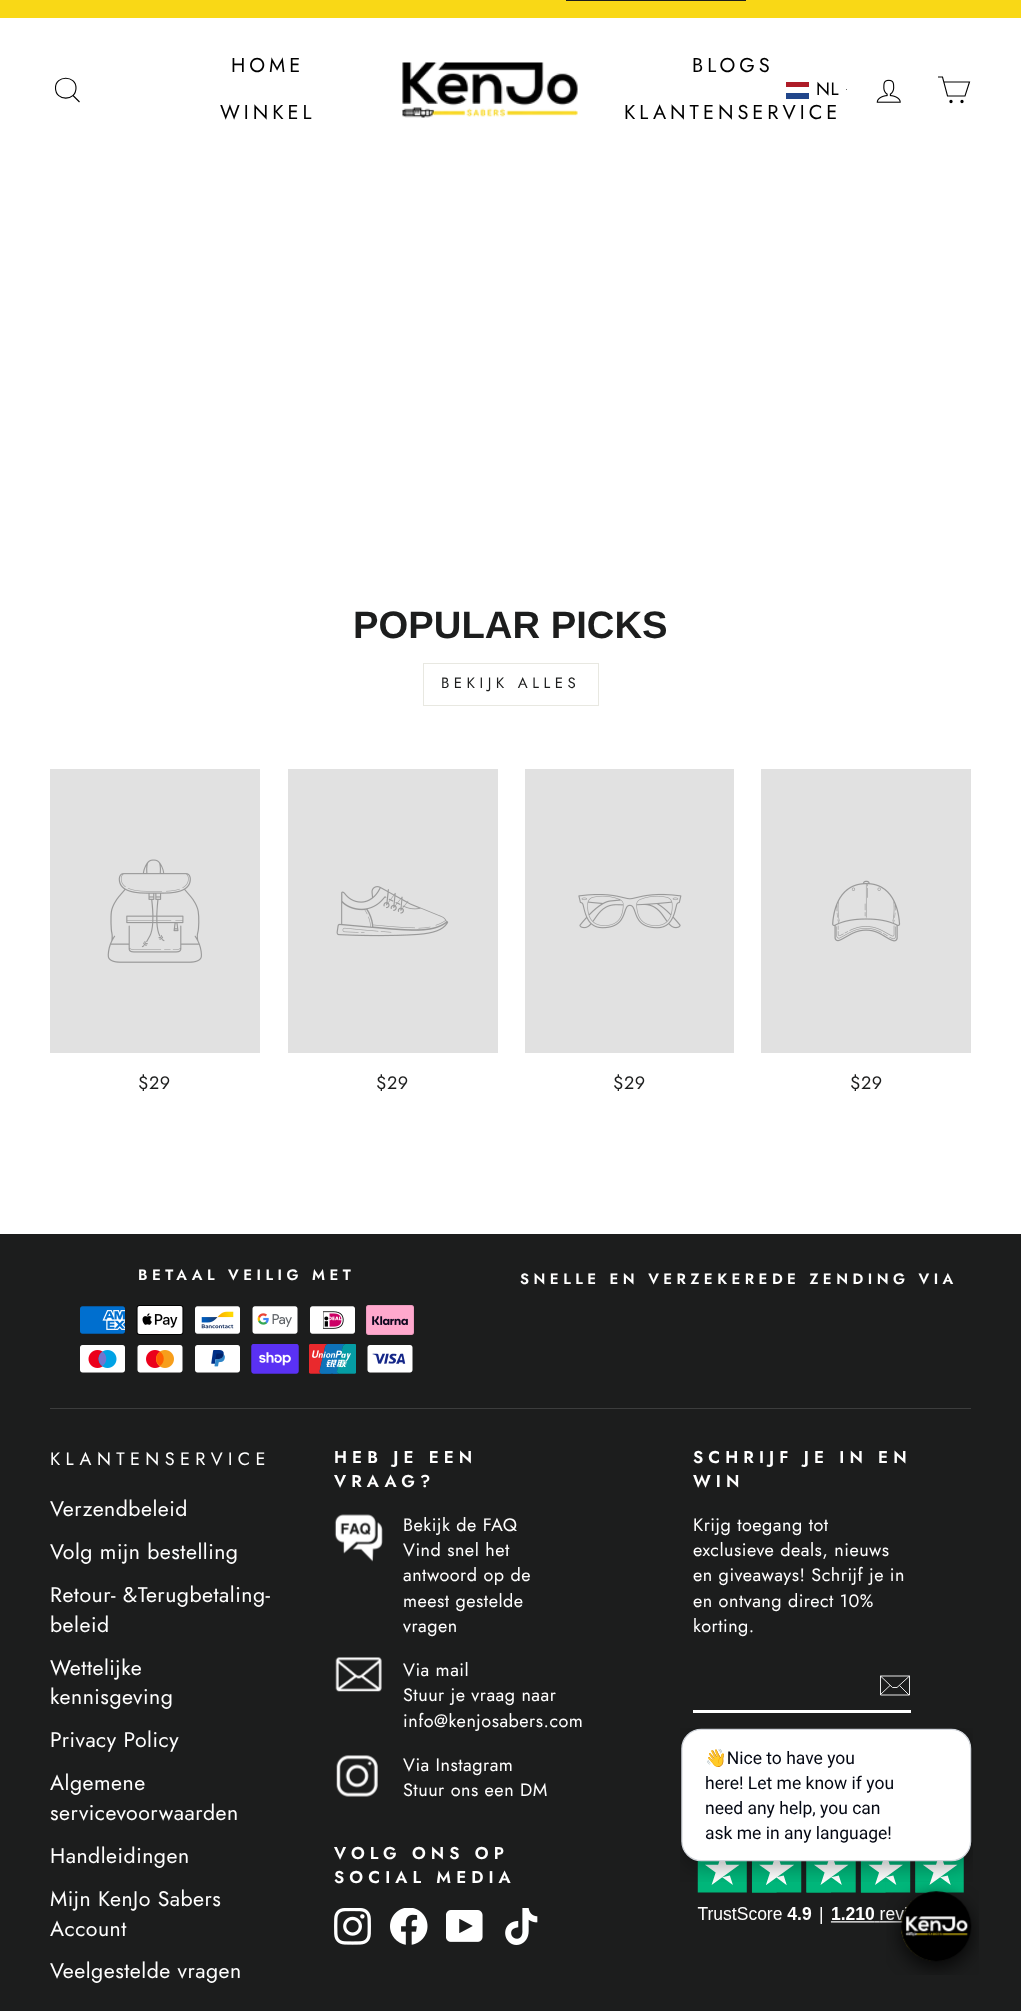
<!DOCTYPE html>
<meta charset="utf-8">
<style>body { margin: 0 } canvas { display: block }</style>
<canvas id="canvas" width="1021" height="2011"></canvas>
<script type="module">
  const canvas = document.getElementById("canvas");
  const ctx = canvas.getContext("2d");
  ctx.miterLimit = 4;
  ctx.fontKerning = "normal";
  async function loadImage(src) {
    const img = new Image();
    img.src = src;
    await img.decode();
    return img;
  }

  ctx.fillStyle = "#ffffff";
  ctx.fillRect(0, 0, 1021, 2011);
  ctx.fillStyle = "#f9d816";
  ctx.fillRect(0, 0, 1021, 18);
  ctx.fillStyle = "#1c1d1d";
  ctx.fillRect(566, 0, 180, 1);
  ctx.beginPath();
  ctx.moveTo(76, 88);
  ctx.bezierCurveTo(76, 101.5, 55.5, 101.5, 55.5, 88);
  ctx.bezierCurveTo(55.5, 75, 76, 75, 76, 88);
  ctx.closePath();
  ctx.moveTo(79.5, 102);
  ctx.lineTo(73, 95.5);
  ctx.strokeStyle = "#000000";
  ctx.lineWidth = 1.1;
  ctx.stroke();
  ctx.letterSpacing = "4px";
  ctx.font = "20px Jost";
  ctx.fillStyle = "#000000";
  ctx.fillText("HOME", 231, 72);
  ctx.fillText("WINKEL", 220, 119);
  ctx.drawImage(await loadImage("img1.png"), 402, 62, 176, 56);
  ctx.fillText("BLOGS", 692, 72);
  ctx.fillText("KLANTENSERVICE", 624, 119);
  ctx.fillStyle = "#21468b";
  ctx.fillRect(786, 93, 23, 6);
  ctx.fillStyle = "#ae1c28";
  ctx.fillRect(786, 82, 23, 5);
  ctx.letterSpacing = "0.5px";
  ctx.font = "18px Jost";
  ctx.fillStyle = "#000000";
  ctx.fillText("NL", 816, 95);
  ctx.save();
  ctx.beginPath();
  ctx.rect(846, 89, 1, 1);
  ctx.clip();
  ctx.beginPath();
  ctx.moveTo(847.5, 90.5);
  ctx.lineTo(847, 90);
  ctx.lineTo(847, 90.5);
  ctx.lineWidth = 1.2;
  ctx.stroke();
  ctx.restore();
  ctx.drawImage(await loadImage("img2.png"), 876, 79, 25, 24);
  ctx.beginPath();
  ctx.moveTo(944, 82);
  ctx.lineTo(969.5, 82);
  ctx.lineTo(965, 96);
  ctx.lineTo(947.5, 96);
  ctx.lineTo(942.5, 77);
  ctx.lineTo(938, 77);
  ctx.stroke();
  ctx.beginPath();
  ctx.arc(951, 101.5, 1.1, 0, Math.PI * 2);
  ctx.fill();
  ctx.stroke();
  ctx.beginPath();
  ctx.arc(962, 101.5, 1.1, 0, Math.PI * 2);
  ctx.fill();
  ctx.stroke();
  ctx.letterSpacing = "0px";
  ctx.font = "bold 38.25px Liberation Sans";
  ctx.fillStyle = "#1c1d1d";
  ctx.fillText("POPULAR PICKS", 353, 638);
  ctx.strokeStyle = "#e8e8e1";
  ctx.lineWidth = 1;
  ctx.strokeRect(423.5, 663.5, 175, 42);
  ctx.letterSpacing = "4.5px";
  ctx.font = "15px Jost";
  ctx.fillText("BEKIJK ALLES", 441, 688);
  ctx.fillStyle = "#e1e1e1";
  ctx.fillRect(50, 769, 210, 284);
  ctx.drawImage(await loadImage("img3.png"), 107, 859, 95, 104);
  ctx.letterSpacing = "0.5px";
  ctx.font = "18px Jost";
  ctx.fillStyle = "#1c1d1d";
  ctx.fillText("$29", 138, 1089);
  ctx.fillStyle = "#e1e1e1";
  ctx.fillRect(288, 769, 210, 284);
  ctx.drawImage(await loadImage("img4.png"), 336, 886, 113, 51);
  ctx.fillStyle = "#1c1d1d";
  ctx.fillText("$29", 376, 1089);
  ctx.fillStyle = "#e1e1e1";
  ctx.fillRect(525, 769, 209, 284);
  ctx.drawImage(await loadImage("img5.png"), 578, 893, 104, 36);
  ctx.fillStyle = "#1c1d1d";
  ctx.fillText("$29", 613, 1089);
  ctx.fillStyle = "#e1e1e1";
  ctx.fillRect(761, 769, 210, 284);
  ctx.drawImage(await loadImage("img6.png"), 832, 880, 69, 62);
  ctx.fillStyle = "#1c1d1d";
  ctx.fillText("$29", 850, 1089);
  ctx.fillRect(0, 1234, 1021, 777);
  ctx.fillStyle = "#3c3d3d";
  ctx.fillRect(50, 1408, 921, 1);
  ctx.letterSpacing = "4.5px";
  ctx.font = "600 15px Jost";
  ctx.fillStyle = "#ffffff";
  ctx.fillText("BETAAL VEILIG MET", 138, 1280);
  ctx.drawImage(await loadImage("img7.png"), 80, 1306, 45, 28);
  ctx.drawImage(await loadImage("img8.png"), 136, 1305, 48, 30);
  ctx.drawImage(await loadImage("img9.png"), 195, 1306, 45, 28);
  ctx.drawImage(await loadImage("img10.png"), 252, 1306, 46, 28);
  ctx.drawImage(await loadImage("img11.png"), 310, 1306, 45, 28);
  ctx.drawImage(await loadImage("img12.png"), 366, 1305, 48, 30);
  ctx.drawImage(await loadImage("img13.png"), 80, 1345, 45, 28);
  ctx.drawImage(await loadImage("img14.png"), 137, 1345, 46, 28);
  ctx.drawImage(await loadImage("img15.png"), 195, 1345, 45, 28);
  ctx.drawImage(await loadImage("img16.png"), 251, 1344, 48, 30);
  ctx.drawImage(await loadImage("img17.png"), 309, 1344, 47, 30);
  ctx.drawImage(await loadImage("img18.png"), 367, 1345, 46, 28);
  ctx.fillText("SNELLE EN VERZEKEREDE ZENDING VIA", 520, 1284);
  ctx.letterSpacing = "5.4px";
  ctx.font = "18px Jost";
  ctx.fillText("KLANTENSERVICE", 50, 1465);
  ctx.letterSpacing = "0.5px";
  ctx.font = "21.25px Jost";
  ctx.fillText("Verzendbeleid", 50, 1516);
  ctx.fillText("Volg mijn bestelling", 50, 1559);
  ctx.fillText("Retour- &Terugbetaling-", 50, 1602);
  ctx.fillText("beleid", 50, 1632);
  ctx.fillText("Wettelijke", 50, 1675);
  ctx.fillText("kennisgeving", 50, 1704);
  ctx.fillText("Privacy Policy", 50, 1747);
  ctx.fillText("Algemene", 50, 1790);
  ctx.fillText("servicevoorwaarden", 50, 1820);
  ctx.fillText("Handleidingen", 50, 1863);
  ctx.fillText("Mijn KenJo Sabers", 50, 1906);
  ctx.fillText("Account", 50, 1936);
  ctx.fillText("Veelgestelde vragen", 50, 1978);
  ctx.letterSpacing = "5.1px";
  ctx.font = "600 17px Jost";
  ctx.fillText("HEB JE EEN", 334, 1463);
  ctx.fillText("VRAAG?", 334, 1487);
  ctx.drawImage(await loadImage("img19.png"), 334, 1514, 49, 48);
  ctx.letterSpacing = "0.5px";
  ctx.font = "18px Jost";
  ctx.fillText("Bekijk de FAQ", 403, 1531);
  ctx.fillText("Vind snel het", 403, 1556);
  ctx.fillText("antwoord op de", 403, 1581);
  ctx.fillText("meest gestelde", 403, 1607);
  ctx.fillText("vragen", 403, 1632);
  ctx.drawImage(await loadImage("img20.png"), 335, 1657, 47, 35);
  ctx.fillText("Via mail", 403, 1676);
  ctx.fillText("Stuur je vraag naar", 403, 1701);
  ctx.fillText("info@kenjosabers.com", 403, 1727);
  ctx.drawImage(await loadImage("img21.png"), 336, 1755, 42, 42);
  ctx.fillText("Via Instagram", 403, 1771);
  ctx.fillText("Stuur ons een DM", 403, 1796);
  ctx.letterSpacing = "5.1px";
  ctx.font = "600 17px Jost";
  ctx.fillText("VOLG ONS OP", 334, 1859);
  ctx.fillText("SOCIAL MEDIA", 334, 1883);
  ctx.drawImage(await loadImage("img22.png"), 334, 1908, 37, 37);
  ctx.drawImage(await loadImage("img23.png"), 390, 1908, 38, 37);
  ctx.drawImage(await loadImage("img24.png"), 446, 1910, 37, 32);
  ctx.drawImage(await loadImage("img25.png"), 505, 1908, 33, 37);
  ctx.fillText("SCHRIJF JE IN EN", 693, 1463);
  ctx.fillText("WIN", 693, 1487);
  ctx.letterSpacing = "0.5px";
  ctx.font = "18px Jost";
  ctx.fillText("Krijg toegang tot", 693, 1531);
  ctx.fillText("exclusieve deals, nieuws", 693, 1556);
  ctx.fillText("en giveaways! Schrijf je in", 693, 1581);
  ctx.fillText("en ontvang direct 10%", 693, 1607);
  ctx.fillText("korting.", 693, 1632);
  ctx.beginPath();
  ctx.moveTo(909.5, 1695);
  ctx.lineTo(880.5, 1695);
  ctx.lineTo(880.5, 1676);
  ctx.lineTo(909.5, 1676);
  ctx.closePath();
  ctx.moveTo(880.5, 1676);
  ctx.lineTo(892.5, 1687.5);
  ctx.lineTo(897, 1687.5);
  ctx.lineTo(909.5, 1676);
  ctx.moveTo(890, 1685.5);
  ctx.lineTo(880.5, 1694.5);
  ctx.moveTo(909, 1695);
  ctx.lineTo(899.5, 1685.5);
  ctx.strokeStyle = "#ffffff";
  ctx.lineWidth = 0.9;
  ctx.stroke();
  ctx.fillRect(693, 1710, 218, 3);
  ctx.drawImage(await loadImage("img26.png"), 697, 1855, 267, 69);
  ctx.drawImage(await loadImage("img27.png"), 680, 1728, 293, 154);
  ctx.drawImage(await loadImage("img28.png"), 886, 1881, 93, 94);
</script>
